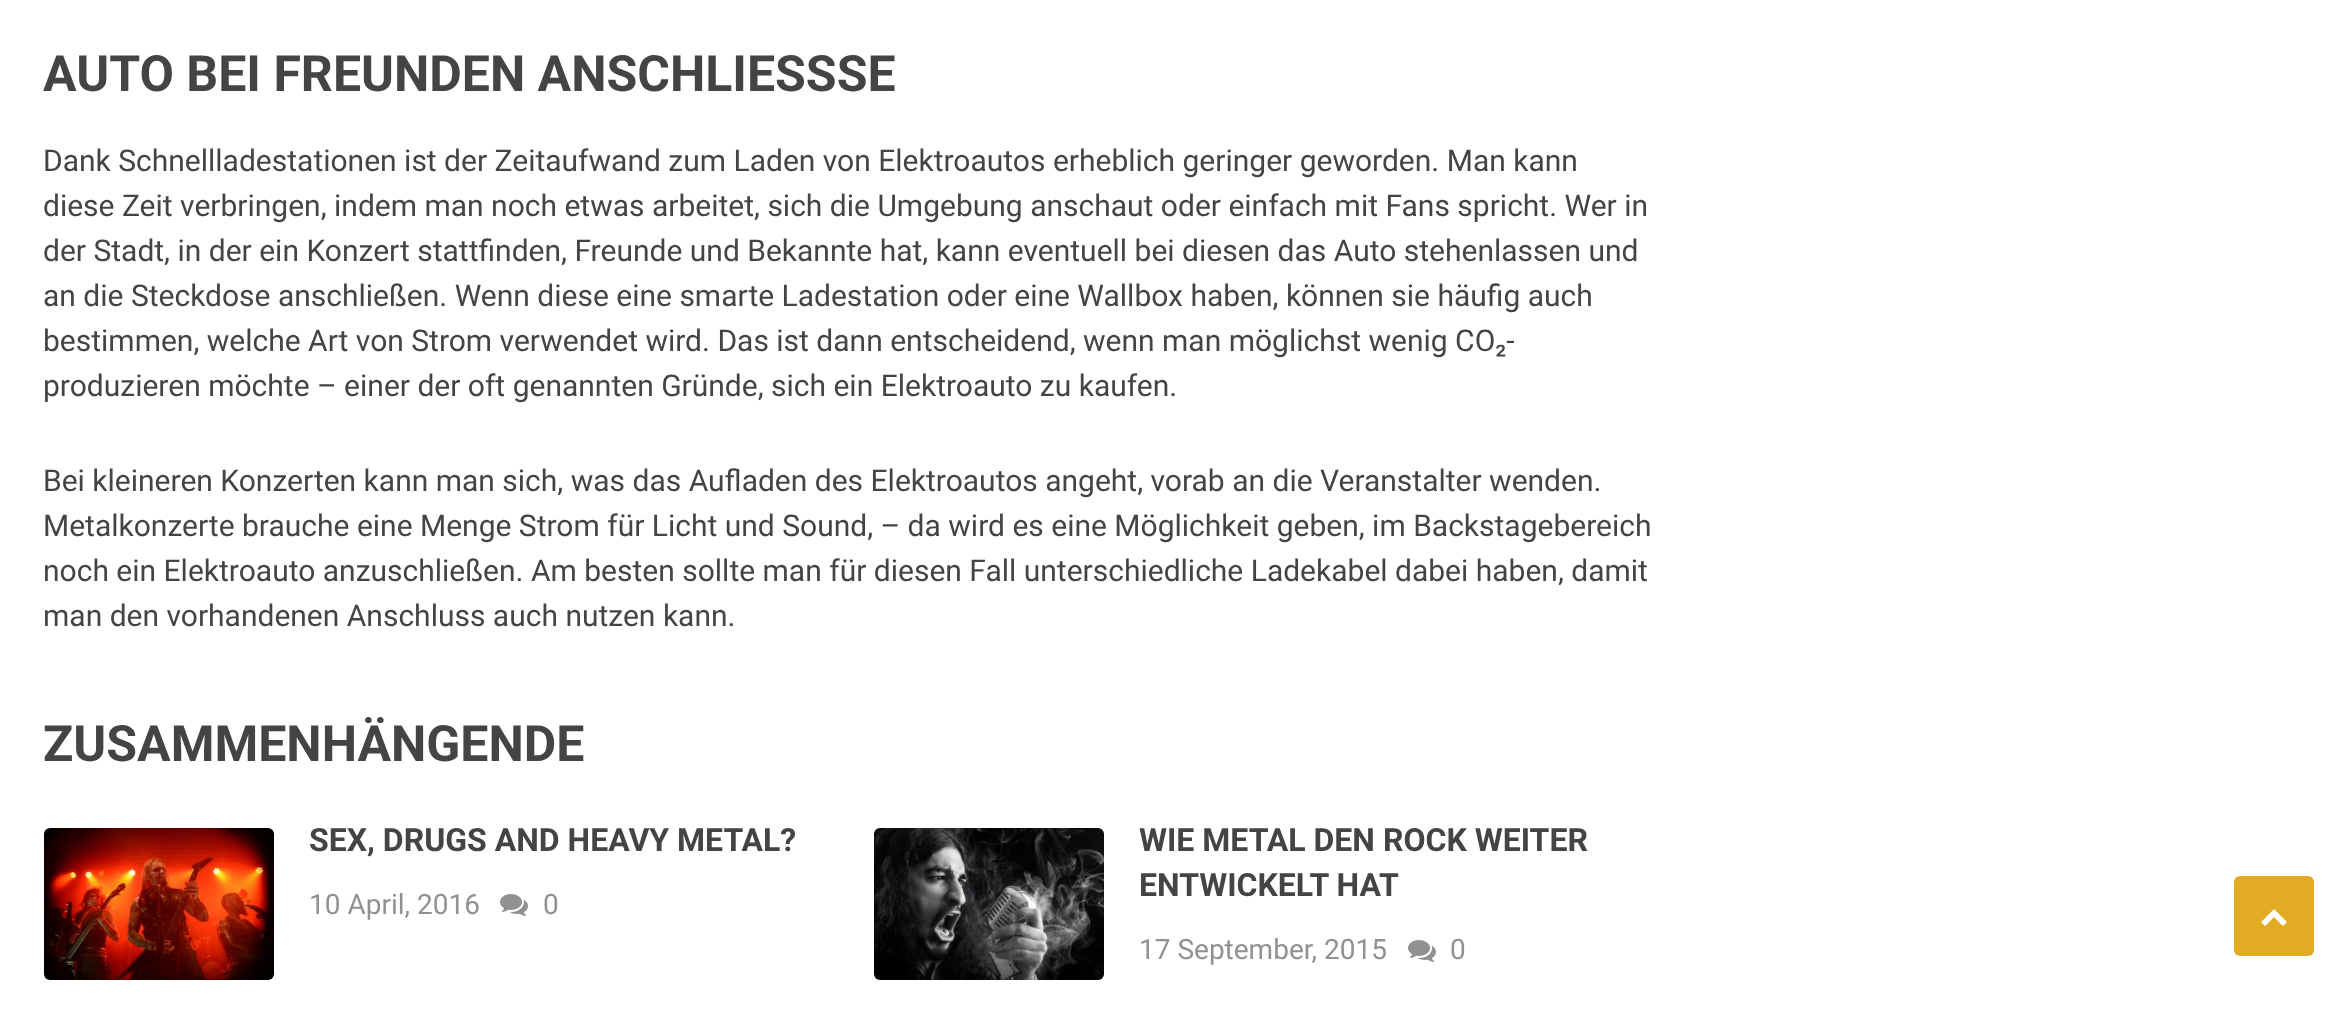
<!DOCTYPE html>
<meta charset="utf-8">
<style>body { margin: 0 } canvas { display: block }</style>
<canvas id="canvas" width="2334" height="1017"></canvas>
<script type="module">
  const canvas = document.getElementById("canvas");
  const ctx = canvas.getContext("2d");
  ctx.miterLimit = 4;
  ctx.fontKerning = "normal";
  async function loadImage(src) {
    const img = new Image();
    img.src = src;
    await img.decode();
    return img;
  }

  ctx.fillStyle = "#ffffff";
  ctx.fillRect(0, 0, 2334, 1017);
  ctx.font = "bold 50px Roboto";
  ctx.fillStyle = "#444444";
  ctx.fillText("AUTO BEI FREUNDEN ANSCHLIESSSE", 43, 91);
  ctx.font = "30px Roboto";
  ctx.fillText("Dank Schnellladestationen ist der Zeitaufwand zum Laden von Elektroautos erheblich geringer geworden. Man kann", 43, 171);
  ctx.fillText("diese Zeit verbringen, indem man noch etwas arbeitet, sich die Umgebung anschaut oder einfach mit Fans spricht. Wer in", 43, 216);
  ctx.fillText("der Stadt, in der ein Konzert stattfinden, Freunde und Bekannte hat, kann eventuell bei diesen das Auto stehenlassen und", 43, 261);
  ctx.fillText("an die Steckdose anschließen. Wenn diese eine smarte Ladestation oder eine Wallbox haben, können sie häufig auch", 43, 306);
  ctx.fillText("bestimmen, welche Art von Strom verwendet wird. Das ist dann entscheidend, wenn man möglichst wenig CO₂-", 43, 351);
  ctx.fillText("produzieren möchte – einer der oft genannten Gründe, sich ein Elektroauto zu kaufen.", 43, 396);
  ctx.fillText("Bei kleineren Konzerten kann man sich, was das Aufladen des Elektroautos angeht, vorab an die Veranstalter wenden.", 43, 491);
  ctx.fillText("Metalkonzerte brauche eine Menge Strom für Licht und Sound, – da wird es eine Möglichkeit geben, im Backstagebereich", 43, 536);
  ctx.fillText("noch ein Elektroauto anzuschließen. Am besten sollte man für diesen Fall unterschiedliche Ladekabel dabei haben, damit", 43, 581);
  ctx.fillText("man den vorhandenen Anschluss auch nutzen kann.", 43, 626);
  ctx.font = "bold 50px Roboto";
  ctx.fillText("ZUSAMMENHÄNGENDE", 43, 761);
  ctx.drawImage(await loadImage("img1.png"), 44, 828, 230, 152);
  ctx.font = "bold 32px Roboto";
  ctx.fillText("SEX, DRUGS AND HEAVY METAL?", 309, 851);
  ctx.font = "28px Roboto";
  ctx.fillStyle = "#919191";
  ctx.fillText("10 April, 2016", 309, 914);
  ctx.drawImage(await loadImage("img2.png"), 500, 894, 28, 22);
  ctx.fillText("0", 543, 914);
  ctx.drawImage(await loadImage("img3.png"), 874, 828, 230, 152);
  ctx.font = "bold 32px Roboto";
  ctx.fillStyle = "#444444";
  ctx.fillText("WIE METAL DEN ROCK WEITER", 1139, 851);
  ctx.fillText("ENTWICKELT HAT", 1139, 896);
  ctx.font = "28px Roboto";
  ctx.fillStyle = "#919191";
  ctx.fillText("17 September, 2015", 1139, 959);
  ctx.drawImage(await loadImage("img2.png"), 1408, 940, 28, 22);
  ctx.fillText("0", 1450, 959);
  ctx.fillStyle = "#e3aa24";
  ctx.beginPath();
  ctx.roundRect(2234, 876, 80, 80, 6);
  ctx.fill();
  ctx.drawImage(await loadImage("img4.png"), 2261, 909, 26, 17);
</script>
